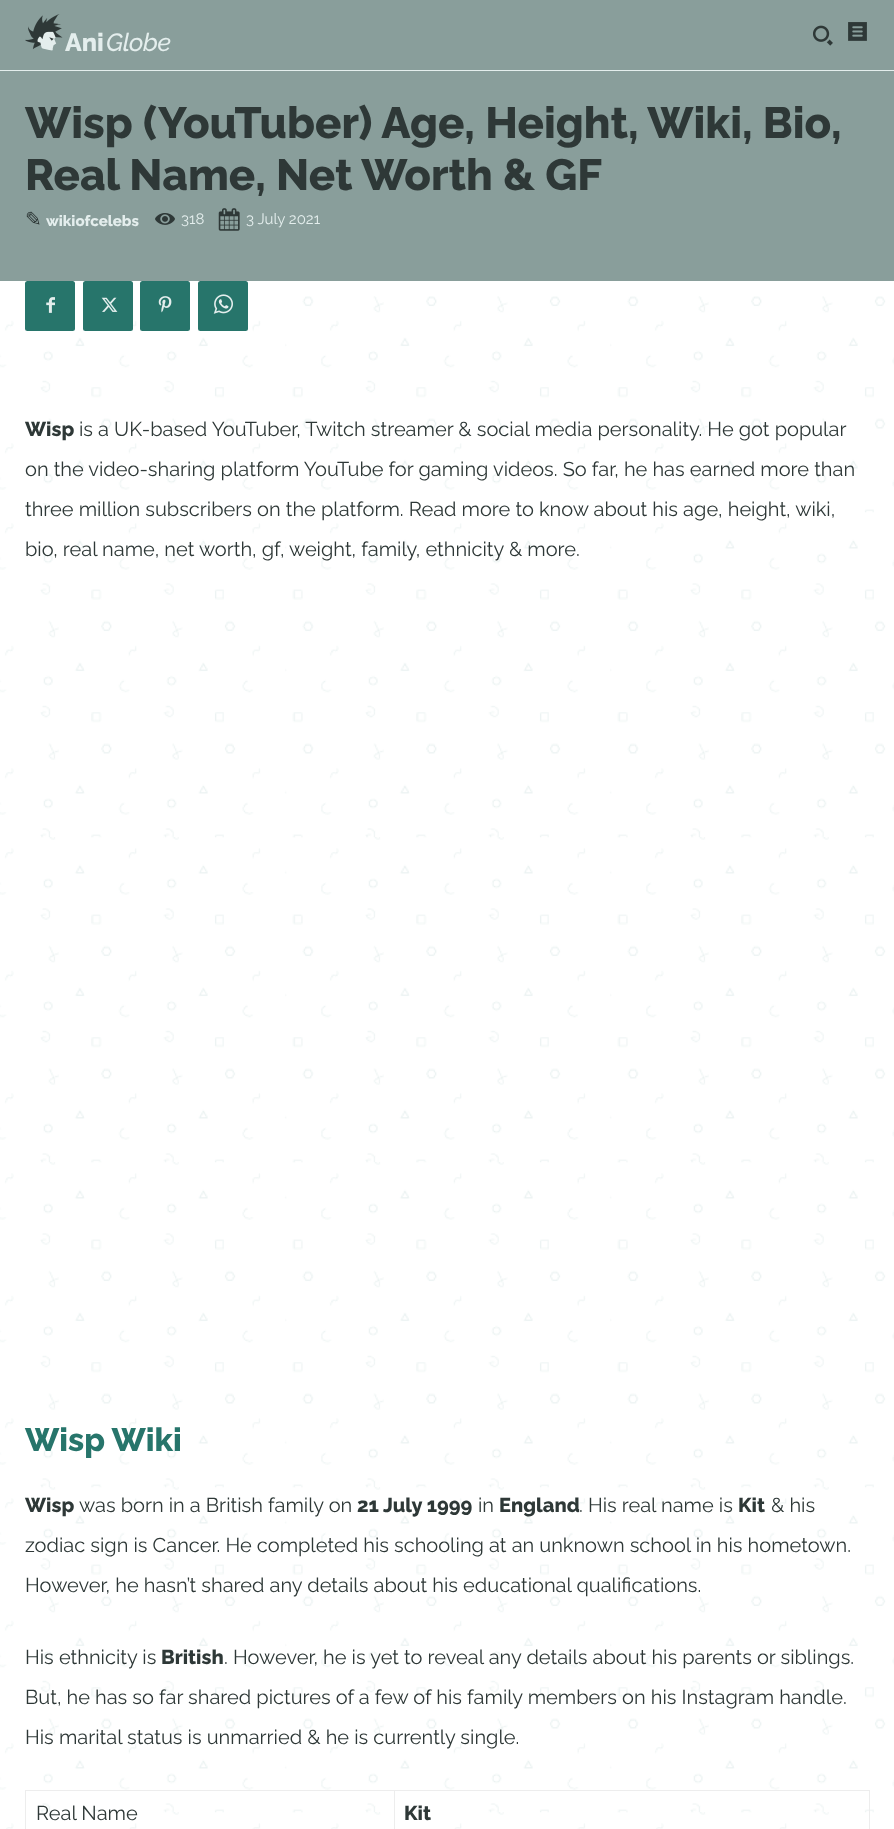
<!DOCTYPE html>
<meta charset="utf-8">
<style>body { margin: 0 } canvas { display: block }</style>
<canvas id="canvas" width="894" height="1829"></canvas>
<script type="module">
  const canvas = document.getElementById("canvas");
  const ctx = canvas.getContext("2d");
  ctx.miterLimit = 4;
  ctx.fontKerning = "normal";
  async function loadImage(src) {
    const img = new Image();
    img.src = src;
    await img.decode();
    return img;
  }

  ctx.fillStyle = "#ffffff";
  ctx.fillRect(0, 0, 894, 1829);
  ctx.fillStyle = "#899e9b";
  ctx.fillRect(0, 0, 894, 70);
  ctx.drawImage(await loadImage("img1.png"), 25, 14, 38, 37);
  ctx.font = "800 25px Raleway";
  ctx.fillStyle = "#e4eeed";
  ctx.fillText("Ani", 65, 51);
  ctx.letterSpacing = "-0.5px";
  ctx.font = "italic 100 25px Raleway";
  ctx.fillText("Globe", 106, 51);
  ctx.drawImage(await loadImage("img2.png"), 813, 25, 20, 21);
  ctx.drawImage(await loadImage("img3.png"), 848, 22, 19, 19);
  ctx.fillStyle = "#899e9b";
  ctx.fillRect(0, 71, 894, 210);
  ctx.fillStyle = "#e4eeed";
  ctx.fillRect(0, 70, 894, 1);
  ctx.letterSpacing = "0px";
  ctx.font = "800 43.75px Raleway";
  ctx.fillStyle = "#2e3837";
  ctx.fillText("Wisp (YouTuber) Age, Height, Wiki, Bio,", 25, 138);
  ctx.fillText("Real Name, Net Worth & GF", 25, 190);
  ctx.font = "20px DejaVu Sans";
  ctx.fillText("✎", 25, 226);
  ctx.font = "800 15px Raleway";
  ctx.fillStyle = "#e4eeed";
  ctx.fillText("wikiofcelebs", 46, 226);
  ctx.drawImage(await loadImage("img4.png"), 155, 213, 20, 12);
  ctx.font = "15px Raleway";
  ctx.fillText("318", 181, 224);
  ctx.drawImage(await loadImage("img5.png"), 218, 208, 22, 23);
  ctx.fillText("3 July 2021", 246, 224);
  ctx.drawImage(await loadImage("img10.png"), 0, 296, 894, 1533);
  ctx.fillStyle = "#27756b";
  ctx.beginPath();
  ctx.roundRect(25, 281, 50, 50, 2.5);
  ctx.fill();
  ctx.drawImage(await loadImage("img6.png"), 46, 297, 9, 16);
  ctx.beginPath();
  ctx.roundRect(83, 281, 50, 50, 2.5);
  ctx.fill();
  ctx.drawImage(await loadImage("img7.png"), 101, 297, 17, 15);
  ctx.beginPath();
  ctx.roundRect(140, 281, 50, 50, 2.5);
  ctx.fill();
  ctx.drawImage(await loadImage("img8.png"), 158, 296, 14, 17);
  ctx.beginPath();
  ctx.roundRect(198, 281, 50, 50, 2.5);
  ctx.fill();
  ctx.drawImage(await loadImage("img9.png"), 213, 294, 20, 20);
  ctx.font = "800 20px Raleway";
  ctx.fillStyle = "#2e3837";
  ctx.fillText("Wisp", 25, 436);
  ctx.font = "20px Raleway";
  ctx.fillText("is a UK-based YouTuber, Twitch streamer & social media personality. He got popular", 79, 436);
  ctx.fillText("on the video-sharing platform YouTube for gaming videos. So far, he has earned more than", 25, 476);
  ctx.fillText("three million subscribers on the platform. Read more to know about his age, height, wiki,", 25, 516);
  ctx.fillText("bio, real name, net worth, gf, weight, family, ethnicity & more.", 25, 556);
  ctx.font = "800 32.5px Raleway";
  ctx.fillStyle = "#27756b";
  ctx.fillText("Wisp Wiki", 25, 1451);
  ctx.font = "800 20px Raleway";
  ctx.fillStyle = "#2e3837";
  ctx.fillText("Wisp", 25, 1512);
  ctx.font = "20px Raleway";
  ctx.fillText("was born in a British family on", 79, 1512);
  ctx.font = "800 20px Raleway";
  ctx.fillText("21 July 1999", 357, 1512);
  ctx.font = "20px Raleway";
  ctx.fillText("in", 478, 1512);
  ctx.font = "800 20px Raleway";
  ctx.fillText("England", 499, 1512);
  ctx.font = "20px Raleway";
  ctx.fillText(". His real name is", 579, 1512);
  ctx.font = "800 20px Raleway";
  ctx.fillText("Kit", 738, 1512);
  ctx.font = "20px Raleway";
  ctx.fillText("& his", 771, 1512);
  ctx.fillText("zodiac sign is Cancer. He completed his schooling at an unknown school in his hometown.", 25, 1552);
  ctx.fillText("However, he hasn’t shared any details about his educational qualifications.", 25, 1592);
  ctx.fillText("His ethnicity is", 25, 1664);
  ctx.font = "800 20px Raleway";
  ctx.fillText("British", 161, 1664);
  ctx.font = "20px Raleway";
  ctx.fillText(". However, he is yet to reveal any details about his parents or siblings.", 224, 1664);
  ctx.fillText("But, he has so far shared pictures of a few of his family members on his Instagram handle.", 25, 1704);
  ctx.fillText("His marital status is unmarried & he is currently single.", 25, 1744);
  ctx.fillStyle = "#ededed";
  ctx.fillRect(394, 1790, 476, 1);
  ctx.fillRect(394, 1790, 1, 39);
  ctx.fillRect(25, 1790, 370, 1);
  ctx.fillRect(25, 1790, 1, 39);
  ctx.fillStyle = "#2e3837";
  ctx.fillText("Real Name", 36, 1820);
  ctx.fillStyle = "#ededed";
  ctx.fillRect(869, 1790, 1, 39);
  ctx.font = "800 20px Raleway";
  ctx.fillStyle = "#2e3837";
  ctx.fillText("Kit", 404, 1820);
</script>
